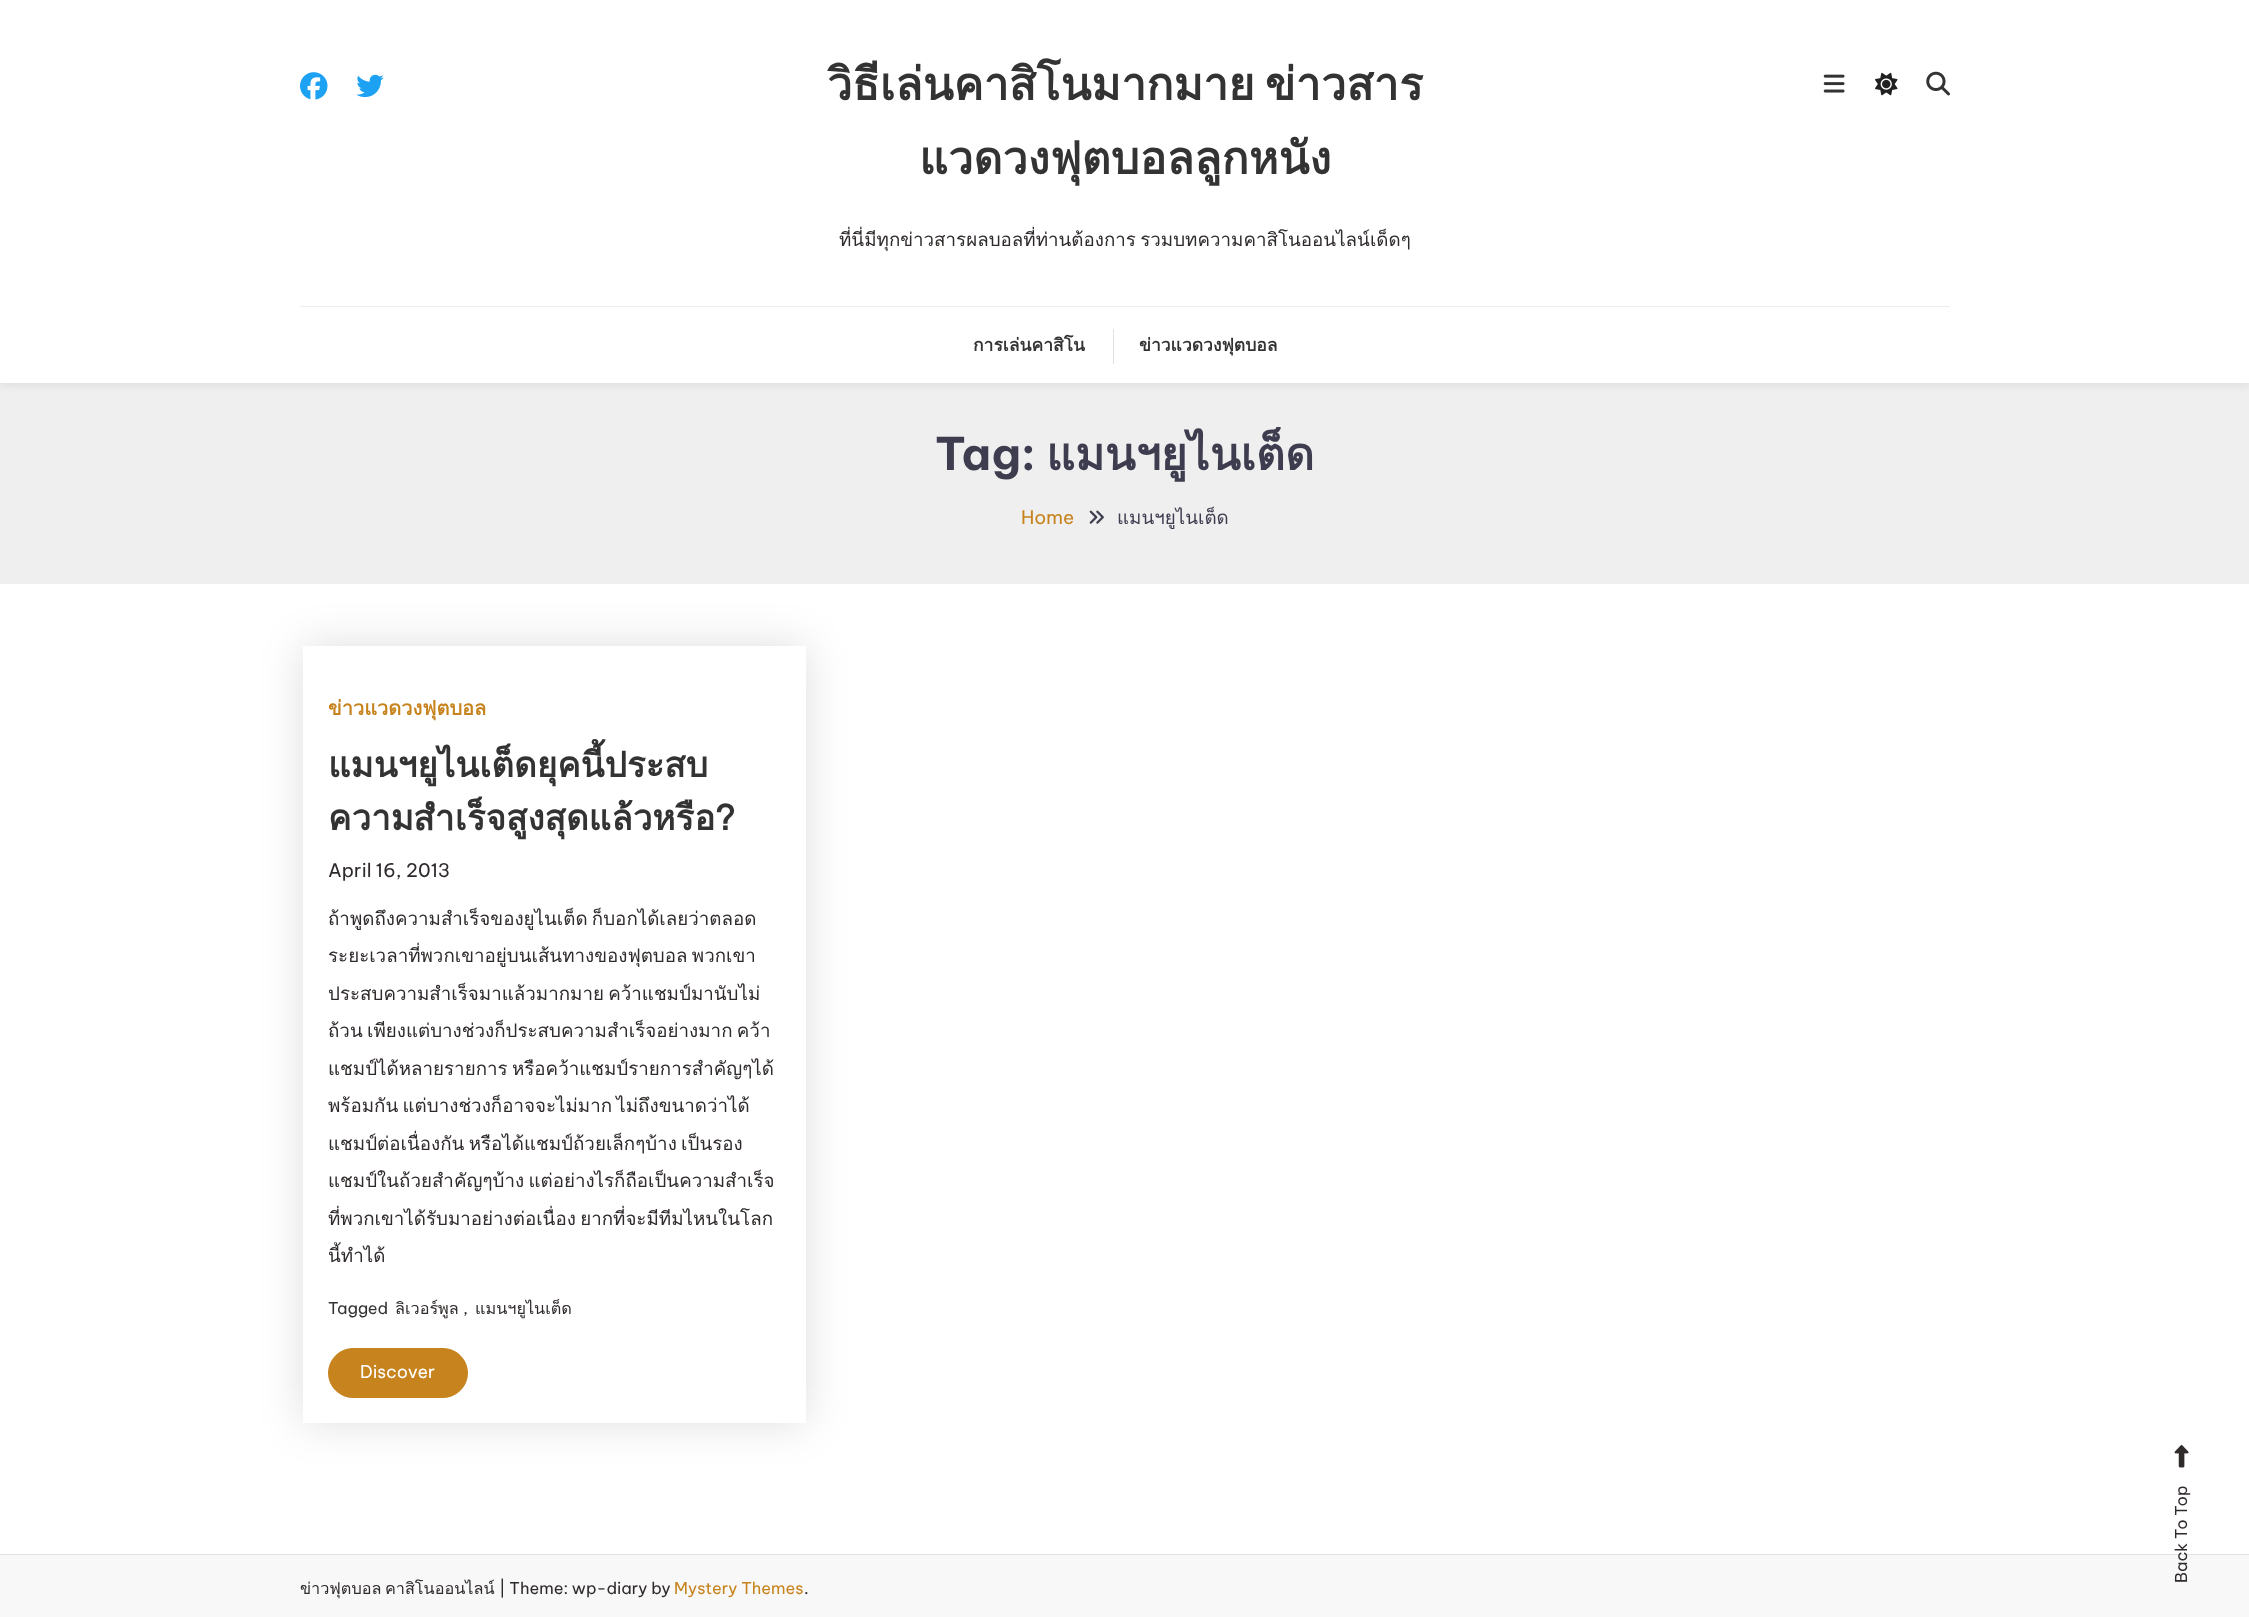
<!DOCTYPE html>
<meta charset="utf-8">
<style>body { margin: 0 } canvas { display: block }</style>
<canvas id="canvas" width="2249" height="1617"></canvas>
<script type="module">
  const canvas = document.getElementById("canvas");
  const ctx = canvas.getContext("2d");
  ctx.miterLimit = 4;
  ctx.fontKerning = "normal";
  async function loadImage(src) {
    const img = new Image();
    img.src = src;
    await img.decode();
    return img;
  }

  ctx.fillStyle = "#ffffff";
  ctx.fillRect(0, 0, 2249, 1617);
  ctx.fillStyle = "#efefef";
  ctx.fillRect(0, 383, 2249, 201);
  ctx.save();
  ctx.beginPath();
  ctx.moveTo(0, 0);
  ctx.lineTo(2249, 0);
  ctx.lineTo(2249, 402);
  ctx.lineTo(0, 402);
  ctx.closePath();
  ctx.moveTo(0, 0);
  ctx.lineTo(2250, 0);
  ctx.lineTo(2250, 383);
  ctx.lineTo(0, 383);
  ctx.closePath();
  ctx.clip("evenodd");
  ctx.fillStyle = "rgba(0, 0, 0, 0.1)";
  ctx.filter = "blur(6px)";
  ctx.beginPath();
  ctx.rect(0, 0, 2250, 383);
  ctx.fill();
  ctx.filter = "none";
  ctx.restore();
  ctx.drawImage(await loadImage("img1.png"), 300, 72, 28, 28);
  ctx.drawImage(await loadImage("img2.png"), 356, 74, 28, 24);
  ctx.wordSpacing = "-5px";
  ctx.font = "bold 45px Loma";
  ctx.fillStyle = "#333333";
  ctx.fillText("วิธีเล่นคาสิโนมากมาย ข่าวสาร", 827, 100);
  ctx.wordSpacing = "0px";
  ctx.fillText("แวดวงฟุตบอลลูกหนัง", 919, 174);
  ctx.wordSpacing = "-2px";
  ctx.font = "18.75px Loma";
  ctx.fillStyle = "#302b2b";
  ctx.fillText("ที่นี่มีทุกข่าวสารผลบอลที่ท่านต้องการ รวมบทความคาสิโนออนไลน์เด็ดๆ", 839, 246);
  ctx.drawImage(await loadImage("img3.png"), 1823, 74, 22, 19);
  ctx.drawImage(await loadImage("img4.png"), 1875, 72, 23, 24);
  ctx.drawImage(await loadImage("img5.png"), 1926, 71, 24, 25);
  ctx.fillStyle = "#eeeeee";
  ctx.fillRect(300, 306, 1650, 1);
  ctx.wordSpacing = "0px";
  ctx.font = "bold 17.5px Loma";
  ctx.fillStyle = "#333333";
  ctx.fillText("การเล่นคาสิโน", 973, 351);
  ctx.fillStyle = "#e1e1e1";
  ctx.fillRect(1113, 329, 1, 35);
  ctx.fillStyle = "#333333";
  ctx.fillText("ข่าวแวดวงฟุตบอล", 1139, 351);
  ctx.font = "bold 45px Be Vietnam Pro";
  ctx.fillStyle = "#3d3d4f";
  ctx.fillText("Tag:", 935, 470);
  ctx.font = "bold 45px Loma";
  ctx.fillText("แมนฯยูไนเต็ด", 1046, 470);
  ctx.font = "18.75px Be Vietnam Pro";
  ctx.fillStyle = "#c7831d";
  ctx.fillText("Home", 1021, 524);
  ctx.drawImage(await loadImage("img6.png"), 1089, 510, 15, 14);
  ctx.font = "18.75px Loma";
  ctx.fillStyle = "#3d3d4f";
  ctx.fillText("แมนฯยูไนเต็ด", 1117, 524);
  ctx.save();
  ctx.beginPath();
  ctx.moveTo(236, 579);
  ctx.lineTo(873, 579);
  ctx.lineTo(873, 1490);
  ctx.lineTo(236, 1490);
  ctx.closePath();
  ctx.moveTo(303, 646);
  ctx.lineTo(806, 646);
  ctx.lineTo(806, 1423);
  ctx.lineTo(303, 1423);
  ctx.closePath();
  ctx.clip("evenodd");
  ctx.fillStyle = "rgba(0, 0, 0, 0.13)";
  ctx.filter = "blur(22px)";
  ctx.beginPath();
  ctx.rect(303, 646, 503, 777);
  ctx.fill();
  ctx.filter = "none";
  ctx.restore();
  ctx.font = "bold 20px Loma";
  ctx.fillStyle = "#c7831d";
  ctx.fillText("ข่าวแวดวงฟุตบอล", 328, 715);
  ctx.font = "bold 35px Loma";
  ctx.fillStyle = "#333333";
  ctx.fillText("แมนฯยูไนเต็ดยุคนี้ประสบ", 328, 777);
  ctx.fillText("ความสำเร็จสูงสุดแล้วหรือ?", 328, 830);
  ctx.font = "18.75px Be Vietnam Pro";
  ctx.fillStyle = "#302b2b";
  ctx.fillText("April 16, 2013", 328, 877);
  ctx.wordSpacing = "-2px";
  ctx.font = "18.75px Loma";
  ctx.fillText("ถ้าพูดถึงความสำเร็จของยูไนเต็ด ก็บอกได้เลยว่าตลอด", 328, 925);
  ctx.fillText("ระยะเวลาที่พวกเขาอยู่บนเส้นทางของฟุตบอล พวกเขา", 328, 962);
  ctx.fillText("ประสบความสำเร็จมาแล้วมากมาย คว้าแชมป์มานับไม่", 328, 1000);
  ctx.fillText("ถ้วน เพียงแต่บางช่วงก็ประสบความสำเร็จอย่างมาก คว้า", 328, 1037);
  ctx.fillText("แชมป์ได้หลายรายการ หรือคว้าแชมป์รายการสำคัญๆได้", 328, 1075);
  ctx.fillText("พร้อมกัน แต่บางช่วงก็อาจจะไม่มาก ไม่ถึงขนาดว่าได้", 328, 1112);
  ctx.fillText("แชมป์ต่อเนื่องกัน หรือได้แชมป์ถ้วยเล็กๆบ้าง เป็นรอง", 328, 1150);
  ctx.fillText("แชมป์ในถ้วยสำคัญๆบ้าง แต่อย่างไรก็ถือเป็นความสำเร็จ", 328, 1187);
  ctx.fillText("ที่พวกเขาได้รับมาอย่างต่อเนื่อง ยากที่จะมีทีมไหนในโลก", 328, 1225);
  ctx.wordSpacing = "0px";
  ctx.fillText("นี้ทำได้", 328, 1262);
  ctx.font = "16.25px Be Vietnam Pro";
  ctx.fillStyle = "#333333";
  ctx.fillText("Tagged", 328, 1314);
  ctx.font = "16.25px Loma";
  ctx.fillStyle = "#302b2b";
  ctx.fillText("ลิเวอร์พูล", 395, 1314);
  ctx.font = "16.25px Be Vietnam Pro";
  ctx.fillStyle = "#333333";
  ctx.fillText(",", 463, 1314);
  ctx.font = "16.25px Loma";
  ctx.fillStyle = "#302b2b";
  ctx.fillText("แมนฯยูไนเต็ด", 475, 1314);
  ctx.fillStyle = "#c7831d";
  ctx.beginPath();
  ctx.roundRect(328.5, 1348.5, 139, 49, 24.5);
  ctx.fill();
  ctx.strokeStyle = "#c7831d";
  ctx.stroke();
  ctx.font = "17.5px Be Vietnam Pro";
  ctx.fillStyle = "#ffffff";
  ctx.fillText("Discover", 360, 1378);
  ctx.drawImage(await loadImage("img7.png"), 2174, 1445, 15, 23);
  ctx.fillStyle = "#e1e1e1";
  ctx.fillRect(0, 1554, 2249, 1);
  ctx.fillStyle = "#f8f8f8";
  ctx.fillRect(0, 1555, 2249, 62);
  ctx.font = "16.25px Be Vietnam Pro";
  ctx.fillStyle = "#302b2b";
  ctx.save();
  ctx.translate(2187, 1583);
  ctx.rotate(-90 * Math.PI / 180);
  ctx.fillText("Back To Top", 0, 0);
  ctx.restore();
  ctx.wordSpacing = "-2px";
  ctx.font = "16.25px Loma";
  ctx.fillText("ข่าวฟุตบอล คาสิโนออนไลน์", 300, 1594);
  ctx.wordSpacing = "0px";
  ctx.font = "16.25px Be Vietnam Pro";
  ctx.fillText("| Theme: wp-diary by", 499, 1594);
  ctx.fillStyle = "#c7831d";
  ctx.fillText("Mystery Themes", 674, 1594);
  ctx.fillStyle = "#302b2b";
  ctx.fillText(".", 804, 1594);
</script>
